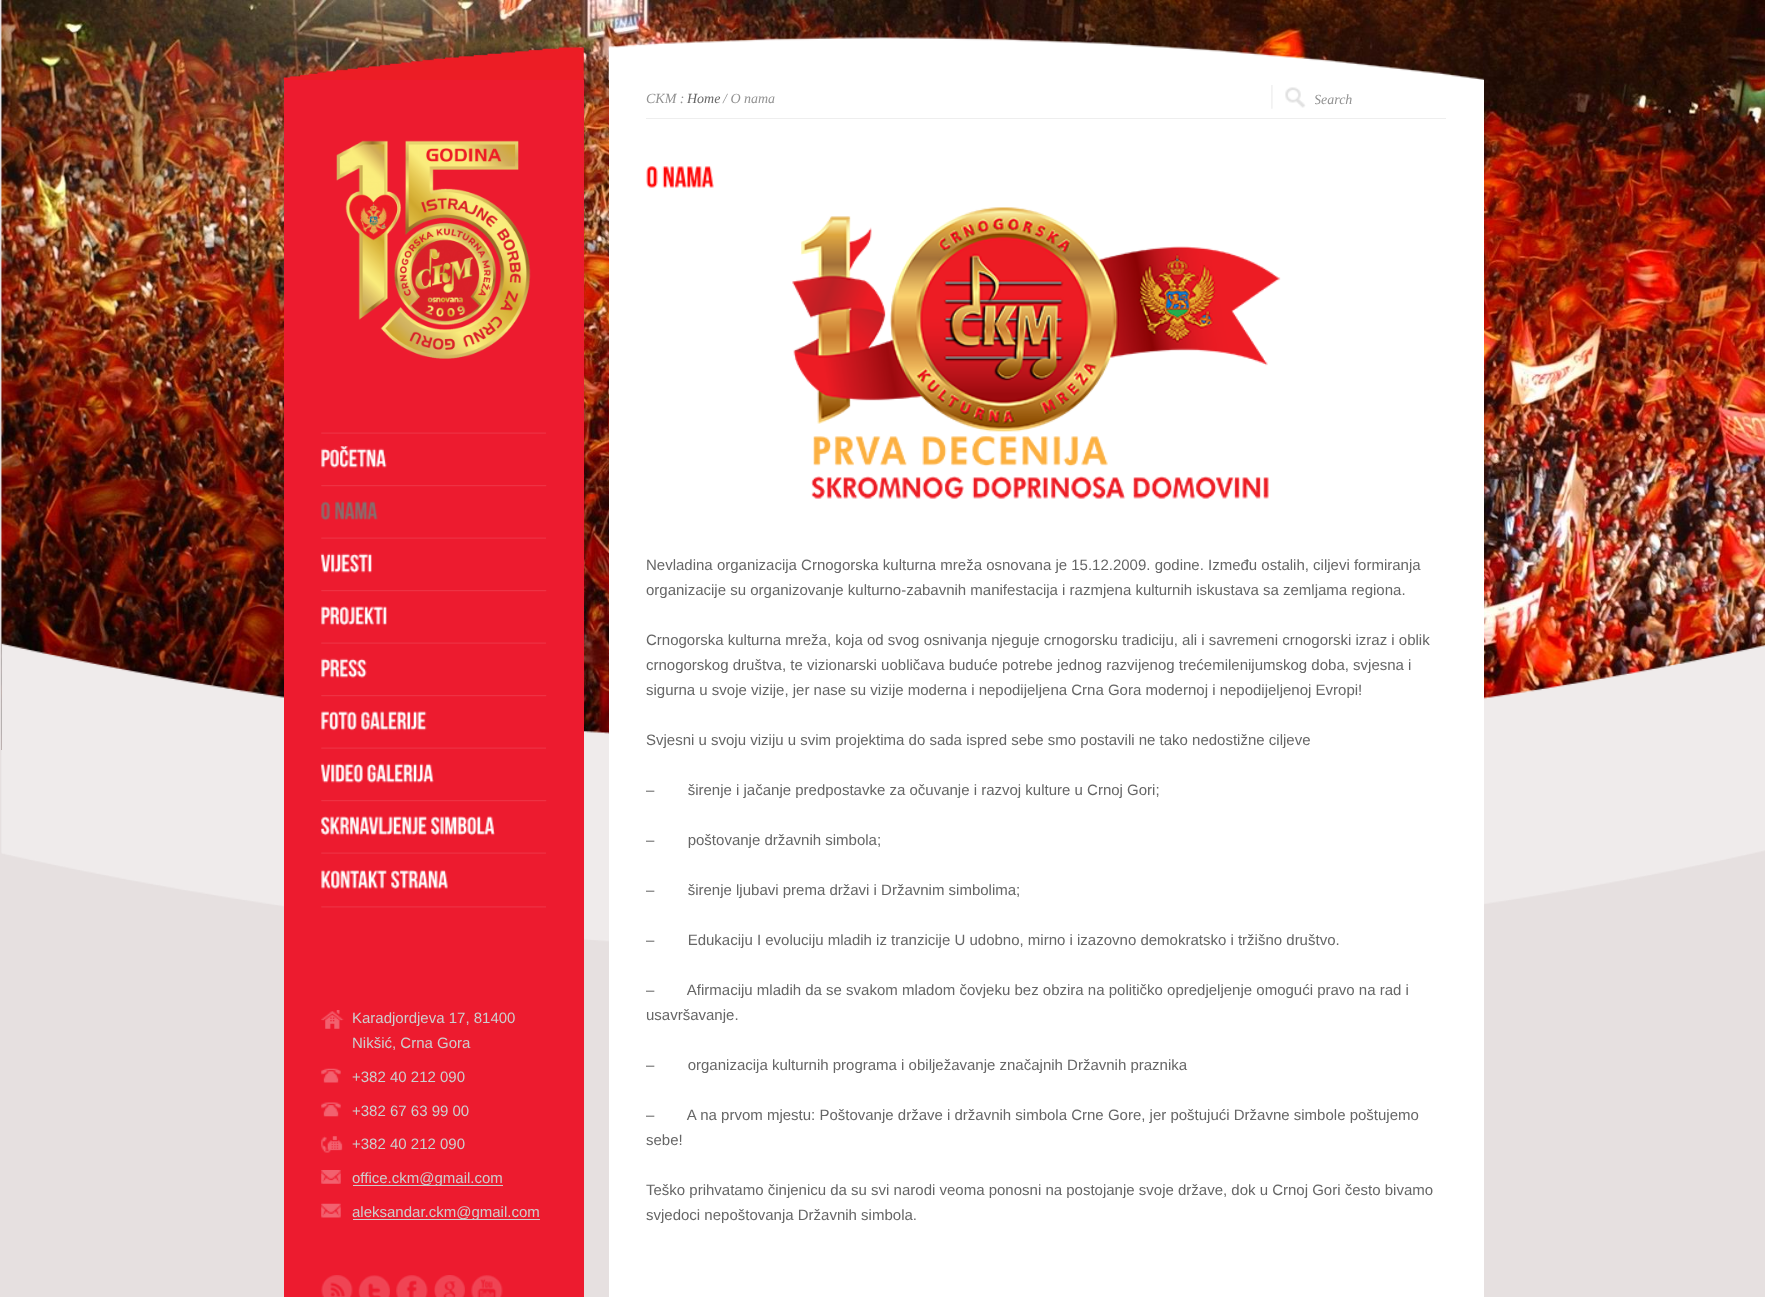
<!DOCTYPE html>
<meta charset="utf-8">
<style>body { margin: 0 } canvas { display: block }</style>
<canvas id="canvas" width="1765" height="1297"></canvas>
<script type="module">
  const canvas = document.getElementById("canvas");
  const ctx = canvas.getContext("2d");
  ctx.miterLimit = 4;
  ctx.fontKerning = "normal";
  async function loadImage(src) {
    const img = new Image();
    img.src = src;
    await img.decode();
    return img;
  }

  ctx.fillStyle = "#e6e0e0";
  ctx.fillRect(0, 0, 1765, 1297);
  ctx.drawImage(await loadImage("img1.png"), 1, 0, 1764, 750);
  ctx.drawImage(await loadImage("img2.png"), 1, 643, 1764, 299);
  ctx.drawImage(await loadImage("img3.png"), 283, 47, 301, 33);
  ctx.fillStyle = "#ed1b2f";
  ctx.fillRect(284, 80, 300, 1217);
  ctx.drawImage(await loadImage("img4.png"), 336, 140, 195, 219);
  ctx.drawImage(await loadImage("img5.png"), 321, 432, 225, 2);
  ctx.drawImage(await loadImage("img6.png"), 321, 485, 226, 2);
  ctx.drawImage(await loadImage("img7.png"), 321, 446, 66, 22);
  ctx.drawImage(await loadImage("img5.png"), 321, 537, 225, 2);
  ctx.drawImage(await loadImage("img8.png"), 321, 501, 10, 20);
  ctx.drawImage(await loadImage("img9.png"), 334, 501, 44, 19);
  ctx.drawImage(await loadImage("img6.png"), 321, 590, 226, 2);
  ctx.drawImage(await loadImage("img10.png"), 320, 553, 52, 20);
  ctx.drawImage(await loadImage("img5.png"), 321, 642, 225, 2);
  ctx.drawImage(await loadImage("img11.png"), 321, 606, 66, 20);
  ctx.drawImage(await loadImage("img6.png"), 321, 695, 226, 2);
  ctx.drawImage(await loadImage("img12.png"), 321, 658, 46, 20);
  ctx.drawImage(await loadImage("img5.png"), 321, 747, 225, 2);
  ctx.drawImage(await loadImage("img13.png"), 321, 711, 36, 20);
  ctx.drawImage(await loadImage("img14.png"), 361, 711, 66, 20);
  ctx.drawImage(await loadImage("img6.png"), 321, 800, 226, 2);
  ctx.drawImage(await loadImage("img15.png"), 320, 763, 43, 20);
  ctx.drawImage(await loadImage("img16.png"), 367, 763, 67, 20);
  ctx.drawImage(await loadImage("img5.png"), 321, 852, 225, 2);
  ctx.drawImage(await loadImage("img17.png"), 321, 816, 106, 20);
  ctx.drawImage(await loadImage("img18.png"), 431, 816, 64, 20);
  ctx.drawImage(await loadImage("img19.png"), 321, 906, 225, 2);
  ctx.drawImage(await loadImage("img20.png"), 321, 870, 66, 19);
  ctx.drawImage(await loadImage("img21.png"), 391, 870, 57, 19);
  ctx.drawImage(await loadImage("img22.png"), 321, 1010, 23, 19);
  ctx.font = "15px Liberation Sans";
  ctx.fillStyle = "#cecece";
  ctx.fillText("Karadjordjeva 17, 81400", 352, 1023);
  ctx.fillText("Nikšić, Crna Gora", 352, 1048);
  ctx.drawImage(await loadImage("img23.png"), 321, 1068, 20, 15);
  ctx.fillText("+382 40 212 090", 352, 1082);
  ctx.drawImage(await loadImage("img24.png"), 321, 1102, 20, 15);
  ctx.fillText("+382 67 63 99 00", 352, 1116);
  ctx.drawImage(await loadImage("img25.png"), 321, 1136, 22, 17);
  ctx.fillText("+382 40 212 090", 352, 1149);
  ctx.drawImage(await loadImage("img26.png"), 321, 1170, 20, 14);
  ctx.fillRect(353, 1185, 150, 1);
  ctx.fillText("office.ckm@gmail.com", 352, 1183);
  ctx.drawImage(await loadImage("img27.png"), 321, 1203, 20, 15);
  ctx.fillRect(353, 1219, 187, 1);
  ctx.fillText("aleksandar.ckm@gmail.com", 352, 1217);
  ctx.drawImage(await loadImage("img28.png"), 321, 1275, 32, 22);
  ctx.drawImage(await loadImage("img29.png"), 358, 1275, 32, 22);
  ctx.drawImage(await loadImage("img30.png"), 396, 1275, 32, 22);
  ctx.drawImage(await loadImage("img31.png"), 434, 1275, 31, 22);
  ctx.drawImage(await loadImage("img32.png"), 471, 1275, 32, 22);
  ctx.drawImage(await loadImage("img33.png"), 608, 37, 876, 43);
  ctx.fillStyle = "#ffffff";
  ctx.fillRect(609, 80, 875, 1217);
  ctx.fillStyle = "#eeeeee";
  ctx.fillRect(646, 118, 800, 1);
  ctx.font = "italic 14px Liberation Serif";
  ctx.fillStyle = "#929292";
  ctx.fillText("CKM :", 646, 103);
  ctx.fillStyle = "#666666";
  ctx.fillText("Home", 687, 103);
  ctx.fillStyle = "#929292";
  ctx.fillText("/ O nama", 723, 103);
  ctx.drawImage(await loadImage("img34.png"), 1271, 85, 35, 24);
  ctx.save();
  ctx.beginPath();
  ctx.rect(1315, 91, 100, 15);
  ctx.clip();
  ctx.fillText("Search", 1314, 104);
  ctx.restore();
  ctx.drawImage(await loadImage("img35.png"), 646, 166, 12, 22);
  ctx.drawImage(await loadImage("img36.png"), 662, 166, 52, 22);
  ctx.drawImage(await loadImage("img37.png"), 792, 207, 489, 292);
  ctx.font = "15px Liberation Sans";
  ctx.fillStyle = "#666666";
  ctx.fillText("Nevladina organizacija Crnogorska kulturna mreža osnovana je 15.12.2009. godine. Između ostalih, ciljevi formiranja", 646, 570);
  ctx.fillText("organizacije su organizovanje kulturno-zabavnih manifestacija i razmjena kulturnih iskustava sa zemljama regiona.", 646, 595);
  ctx.fillText("Crnogorska kulturna mreža, koja od svog osnivanja njeguje crnogorsku tradiciju, ali i savremeni crnogorski izraz i oblik", 646, 645);
  ctx.fillText("crnogorskog društva, te vizionarski uobličava buduće potrebe jednog razvijenog trećemilenijumskog doba, svjesna i", 646, 670);
  ctx.fillText("sigurna u svoje vizije, jer nase su vizije moderna i nepodijeljena Crna Gora modernoj i nepodijeljenoj Evropi!", 646, 695);
  ctx.fillText("Svjesni u svoju viziju u svim projektima do sada ispred sebe smo postavili ne tako nedostižne ciljeve", 646, 745);
  ctx.fillText("–        širenje i jačanje predpostavke za očuvanje i razvoj kulture u Crnoj Gori;", 646, 795);
  ctx.fillText("–        poštovanje državnih simbola;", 646, 845);
  ctx.fillText("–        širenje ljubavi prema državi i Državnim simbolima;", 646, 895);
  ctx.fillText("–        Edukaciju I evoluciju mladih iz tranzicije U udobno, mirno i izazovno demokratsko i tržišno društvo.", 646, 945);
  ctx.fillText("–        Afirmaciju mladih da se svakom mladom čovjeku bez obzira na političko opredjeljenje omogući pravo na rad i", 646, 995);
  ctx.fillText("usavršavanje.", 646, 1020);
  ctx.fillText("–        organizacija kulturnih programa i obilježavanje značajnih Državnih praznika", 646, 1070);
  ctx.fillText("–        A na prvom mjestu: Poštovanje države i državnih simbola Crne Gore, jer poštujući Državne simbole poštujemo", 646, 1120);
  ctx.fillText("sebe!", 646, 1145);
  ctx.fillText("Teško prihvatamo činjenicu da su svi narodi veoma ponosni na postojanje svoje države, dok u Crnoj Gori često bivamo", 646, 1195);
  ctx.fillText("svjedoci nepoštovanja Državnih simbola.", 646, 1220);
</script>
